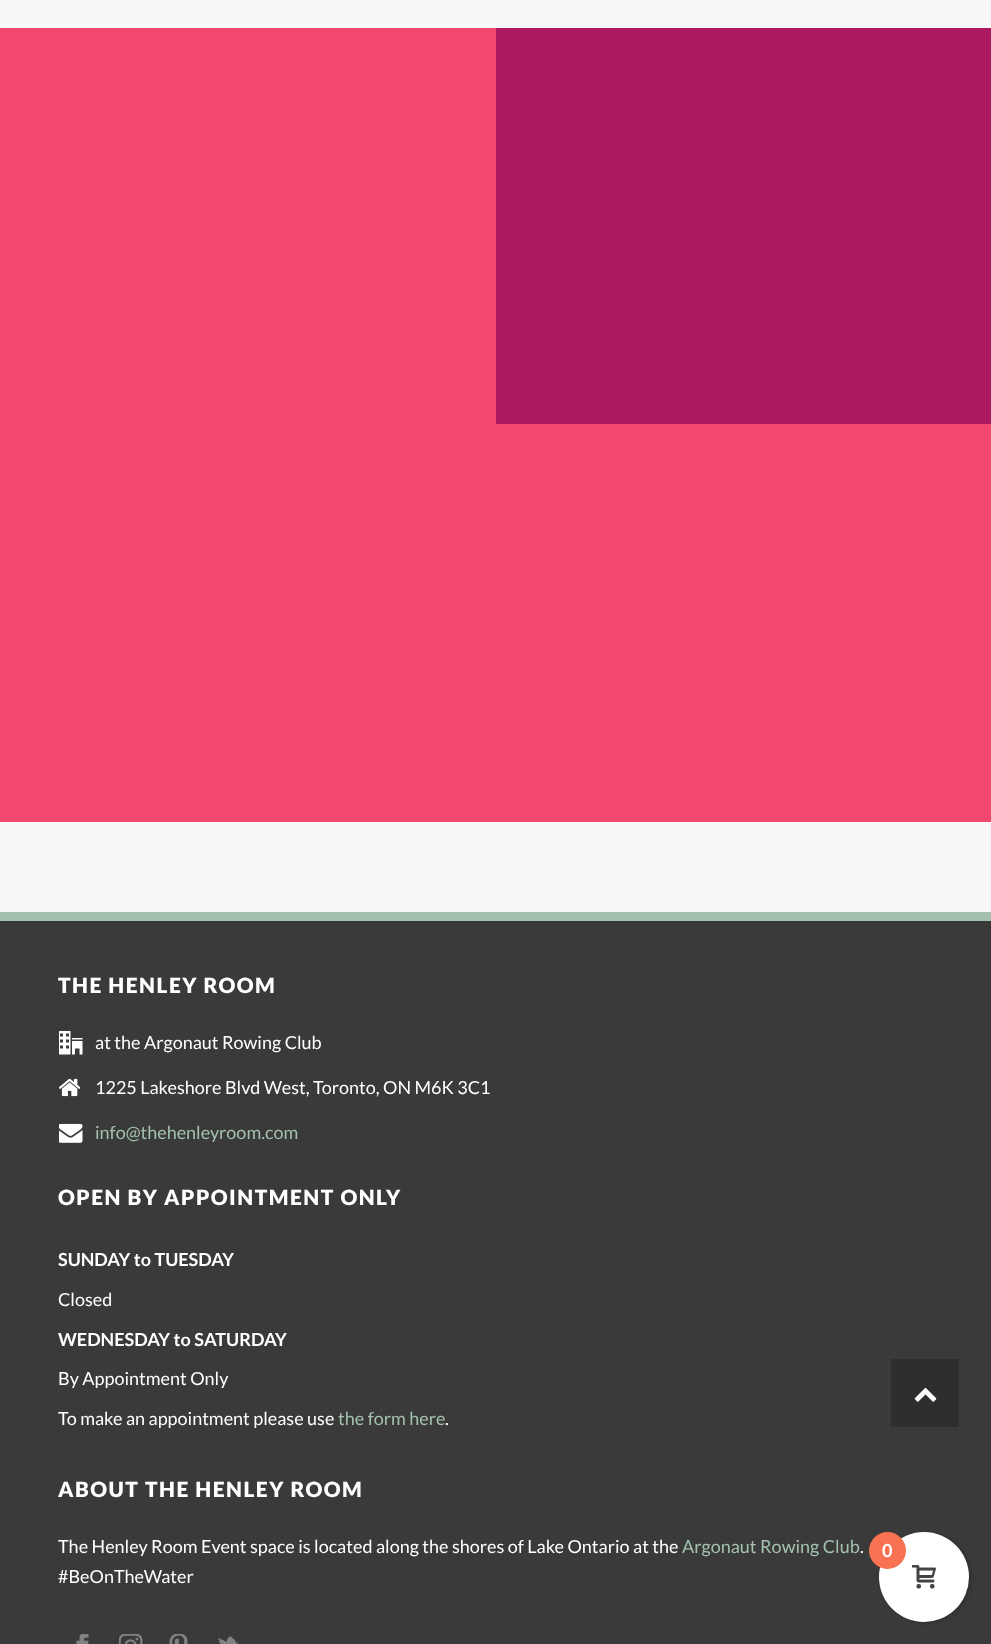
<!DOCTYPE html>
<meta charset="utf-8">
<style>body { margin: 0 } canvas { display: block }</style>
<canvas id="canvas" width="991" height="1644"></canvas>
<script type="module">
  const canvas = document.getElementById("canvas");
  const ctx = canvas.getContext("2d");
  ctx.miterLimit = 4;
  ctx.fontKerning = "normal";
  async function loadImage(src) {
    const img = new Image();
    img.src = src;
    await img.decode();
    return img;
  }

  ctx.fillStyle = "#3a3a3a";
  ctx.fillRect(0, 0, 991, 1644);
  ctx.fillStyle = "#f8f8f8";
  ctx.fillRect(0, 0, 991, 912);
  ctx.fillStyle = "#f2486f";
  ctx.fillRect(0, 28, 496, 396);
  ctx.fillStyle = "#ac1a63";
  ctx.fillRect(496, 28, 495, 396);
  ctx.fillStyle = "#f2486f";
  ctx.fillRect(0, 424, 991, 398);
  ctx.fillStyle = "#a3c1ad";
  ctx.fillRect(0, 912, 991, 9);
  ctx.letterSpacing = "1.5px";
  ctx.font = "900 21px Lato";
  ctx.fillStyle = "#ffffff";
  ctx.fillText("THE HENLEY ROOM", 58, 993);
  ctx.drawImage(await loadImage("img1.png"), 59, 1031, 24, 24);
  ctx.letterSpacing = "0px";
  ctx.font = "18px Lato";
  ctx.fillText("at the Argonaut Rowing Club", 95, 1049);
  ctx.drawImage(await loadImage("img2.png"), 59, 1078, 21, 19);
  ctx.fillText("1225 Lakeshore Blvd West, Toronto, ON M6K 3C1", 95, 1094);
  ctx.drawImage(await loadImage("img3.png"), 59, 1123, 24, 20);
  ctx.fillStyle = "#a3c1ad";
  ctx.fillText("info@thehenleyroom.com", 95, 1139);
  ctx.letterSpacing = "1.5px";
  ctx.font = "900 21px Lato";
  ctx.fillStyle = "#ffffff";
  ctx.fillText("OPEN BY APPOINTMENT ONLY", 58, 1205);
  ctx.letterSpacing = "0px";
  ctx.font = "bold 18px Lato";
  ctx.fillText("SUNDAY to TUESDAY", 58, 1266);
  ctx.font = "18px Lato";
  ctx.fillText("Closed", 58, 1306);
  ctx.font = "bold 18px Lato";
  ctx.fillText("WEDNESDAY to SATURDAY", 58, 1346);
  ctx.font = "18px Lato";
  ctx.fillText("By Appointment Only", 58, 1385);
  ctx.fillText("To make an appointment please use", 58, 1425);
  ctx.fillStyle = "#a3c1ad";
  ctx.fillText("the form here", 338, 1425);
  ctx.fillStyle = "#ffffff";
  ctx.fillText(".", 445, 1425);
  ctx.letterSpacing = "1.5px";
  ctx.font = "900 21px Lato";
  ctx.fillText("ABOUT THE HENLEY ROOM", 58, 1497);
  ctx.letterSpacing = "0px";
  ctx.font = "18px Lato";
  ctx.fillText("The Henley Room Event space is located along the shores of Lake Ontario at the", 58, 1553);
  ctx.fillStyle = "#a3c1ad";
  ctx.fillText("Argonaut Rowing Club", 682, 1553);
  ctx.fillStyle = "#ffffff";
  ctx.fillText(".", 860, 1553);
  ctx.fillText("#BeOnTheWater", 58, 1583);
  ctx.drawImage(await loadImage("img4.png"), 76, 1634, 13, 10);
  ctx.drawImage(await loadImage("img5.png"), 119, 1634, 24, 10);
  ctx.drawImage(await loadImage("img6.png"), 169, 1634, 19, 10);
  ctx.drawImage(await loadImage("img7.png"), 218, 1636, 21, 8);
  ctx.fillStyle = "#2e2e2e";
  ctx.fillRect(891, 1359, 68, 68);
  ctx.drawImage(await loadImage("img8.png"), 914, 1388, 23, 14);
  ctx.fillStyle = "rgba(0, 0, 0, 0.2)";
  ctx.filter = "blur(2px)";
  ctx.beginPath();
  ctx.roundRect(881, 1533, 90, 90, 45);
  ctx.fill();
  ctx.filter = "none";
  ctx.fillStyle = "#ffffff";
  ctx.beginPath();
  ctx.arc(924, 1577, 45, 0, Math.PI * 2);
  ctx.fill();
  ctx.fillStyle = "#f97352";
  ctx.beginPath();
  ctx.arc(887.5, 1550.5, 18.5, 0, Math.PI * 2);
  ctx.fill();
  ctx.font = "bold 18px Lato";
  ctx.fillStyle = "#ffffff";
  ctx.fillText("0", 882, 1557);
  ctx.drawImage(await loadImage("img9.png"), 912, 1565, 24, 24);
</script>
